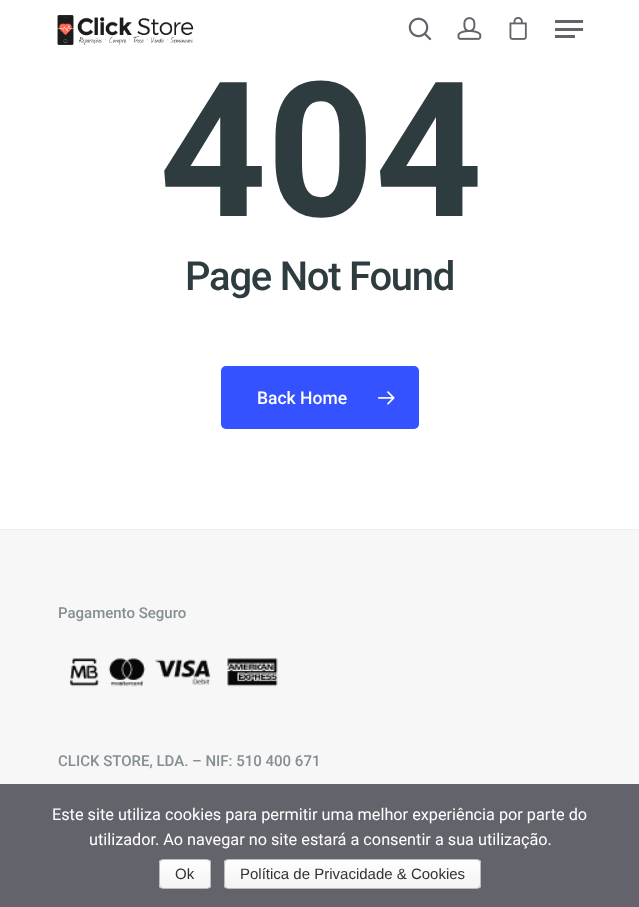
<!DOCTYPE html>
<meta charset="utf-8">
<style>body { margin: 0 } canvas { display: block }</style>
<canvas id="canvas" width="639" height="907"></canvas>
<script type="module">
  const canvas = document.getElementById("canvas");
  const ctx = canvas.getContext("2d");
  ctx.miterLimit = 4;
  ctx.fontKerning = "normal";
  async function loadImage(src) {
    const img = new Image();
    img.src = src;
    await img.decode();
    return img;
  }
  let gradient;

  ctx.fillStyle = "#ffffff";
  ctx.fillRect(0, 0, 639, 907);
  ctx.drawImage(await loadImage("img1.png"), 57, 15, 137, 30);
  ctx.drawImage(await loadImage("img2.png"), 408, 17, 24, 24);
  ctx.drawImage(await loadImage("img3.png"), 457, 17, 25, 23);
  ctx.drawImage(await loadImage("img4.png"), 509, 16, 18, 24);
  ctx.fillStyle = "#63636c";
  ctx.fillRect(555, 20, 28, 3);
  ctx.fillRect(555, 35, 20, 3);
  ctx.fillRect(555, 28, 28, 3);
  ctx.font = "bold 188px Roboto";
  ctx.fillStyle = "#2e3c40";
  ctx.fillText("404", 159, 216);
  ctx.letterSpacing = "-1.25px";
  ctx.font = "500 40px Roboto";
  ctx.fillText("Page Not Found", 185, 290);
  ctx.fillStyle = "#3452ff";
  ctx.beginPath();
  ctx.roundRect(221, 366, 198, 63, 5);
  ctx.fill();
  ctx.letterSpacing = "0px";
  ctx.font = "500 17.5px Roboto";
  ctx.fillStyle = "#ffffff";
  ctx.fillText("Back Home", 257, 404);
  ctx.drawImage(await loadImage("img5.png"), 378, 391, 17, 14);
  ctx.fillStyle = "#f7f7f7";
  ctx.fillRect(0, 530, 639, 254);
  ctx.fillStyle = "#eeeeee";
  ctx.fillRect(0, 529, 639, 1);
  ctx.font = "500 15px Roboto";
  ctx.fillStyle = "#848f93";
  ctx.fillText("Pagamento Seguro", 58, 618);
  ctx.drawImage(await loadImage("img6.png"), 69, 658, 209, 29);
  ctx.fillText("CLICK STORE, LDA. – NIF: 510 400 671", 58, 766);
  ctx.fillStyle = "#63636c";
  ctx.fillRect(0, 784, 639, 123);
  ctx.font = "16.25px Roboto";
  ctx.fillStyle = "#ffffff";
  ctx.fillText("Este site utiliza cookies para permitir uma melhor experiência por parte do", 52, 820);
  ctx.fillText("utilizador. Ao navegar no site estará a consentir a sua utilização.", 89, 845);
  ctx.save();
  ctx.beginPath();
  ctx.roundRect(159, 859, 52, 30, 4);
  ctx.clip();
  gradient = ctx.createLinearGradient(185, 860, 185, 888);
  gradient.addColorStop(0, "#fefefe");
  gradient.addColorStop(1, "#f4f4f4");
  ctx.fillStyle = gradient;
  ctx.fillRect(159, 860, 52, 28);
  ctx.restore();
  ctx.beginPath();
  ctx.roundRect(159.5, 859.5, 51, 29, 3.5);
  ctx.strokeStyle = "#bbbbbb";
  ctx.stroke();
  ctx.font = "15px Liberation Sans";
  ctx.fillStyle = "#333333";
  ctx.fillText("Ok", 175, 879);
  ctx.save();
  ctx.beginPath();
  ctx.roundRect(224, 859, 257, 30, 4);
  ctx.clip();
  gradient = ctx.createLinearGradient(353, 860, 353, 888);
  gradient.addColorStop(0, "#fefefe");
  gradient.addColorStop(1, "#f4f4f4");
  ctx.fillStyle = gradient;
  ctx.fillRect(224, 860, 257, 28);
  ctx.restore();
  ctx.beginPath();
  ctx.roundRect(224.5, 859.5, 256, 29, 3.5);
  ctx.stroke();
  ctx.fillText("Política de Privacidade & Cookies", 240, 879);
</script>
